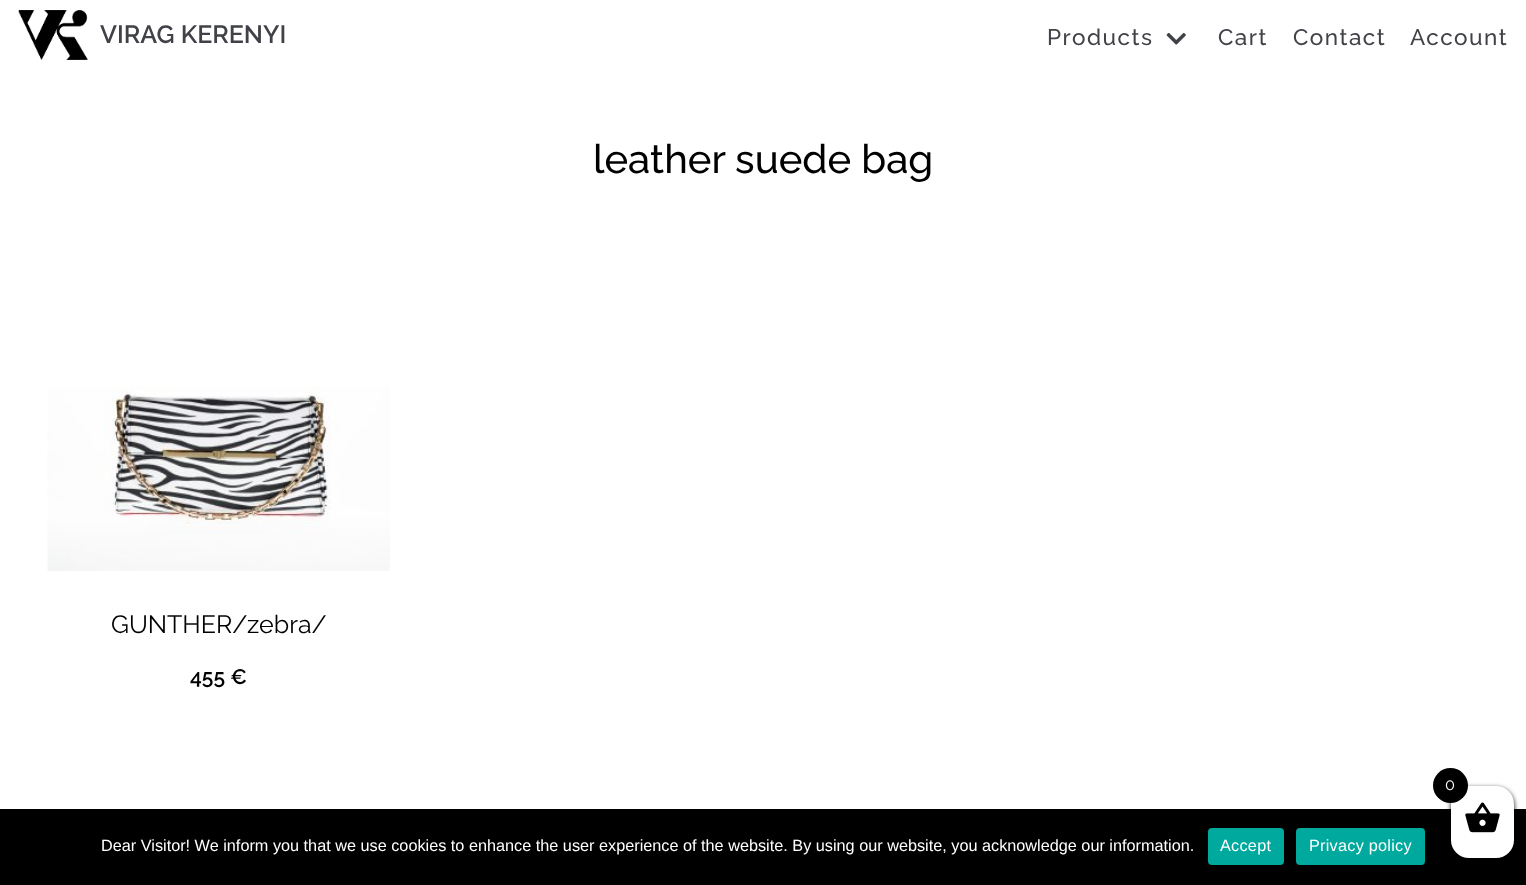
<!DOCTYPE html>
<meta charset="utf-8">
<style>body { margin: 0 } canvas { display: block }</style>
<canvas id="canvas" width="1526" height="885"></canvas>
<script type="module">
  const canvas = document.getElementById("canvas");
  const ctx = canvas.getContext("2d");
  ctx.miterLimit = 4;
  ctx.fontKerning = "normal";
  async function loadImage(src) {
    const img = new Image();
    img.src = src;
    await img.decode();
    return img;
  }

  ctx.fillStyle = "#ffffff";
  ctx.fillRect(0, 0, 1526, 885);
  ctx.drawImage(await loadImage("img1.png"), 18, 10, 70, 50);
  ctx.font = "600 25px Raleway";
  ctx.fillStyle = "#404248";
  ctx.fillText("VIRAG KERENYI", 100, 43);
  ctx.letterSpacing = "1.5px";
  ctx.font = "500 22.5px Raleway";
  ctx.fillText("Products", 1047, 45);
  ctx.drawImage(await loadImage("img2.png"), 1166, 32, 20, 13);
  ctx.fillText("Cart", 1218, 45);
  ctx.fillText("Contact", 1293, 45);
  ctx.fillText("Account", 1410, 45);
  ctx.letterSpacing = "0px";
  ctx.font = "500 40px Raleway";
  ctx.fillStyle = "#000000";
  ctx.fillText("leather suede bag", 593, 173);
  ctx.drawImage(await loadImage("img3.png"), 47, 387, 343, 184);
  ctx.font = "25px Raleway";
  ctx.fillText("GUNTHER/zebra/", 111, 633);
  ctx.font = "600 21px Raleway";
  ctx.fillText("455 €", 190, 684);
  ctx.fillRect(0, 809, 1526, 76);
  ctx.filter = "blur(2.5px)";
  ctx.beginPath();
  ctx.roundRect(1451, 788, 63, 71, 18);
  ctx.fill();
  ctx.filter = "none";
  ctx.fillStyle = "#ffffff";
  ctx.beginPath();
  ctx.roundRect(1451, 786, 63, 72, 18);
  ctx.fill();
  ctx.drawImage(await loadImage("img4.png"), 1465, 802, 35, 31);
  ctx.fillStyle = "#000000";
  ctx.beginPath();
  ctx.arc(1450.5, 785.5, 17.5, 0, Math.PI * 2);
  ctx.fill();
  ctx.font = "16.25px Raleway";
  ctx.fillStyle = "#ffffff";
  ctx.fillText("0", 1445, 790);
  ctx.font = "16.25px Liberation Sans";
  ctx.fillText("Dear Visitor! We inform you that we use cookies to enhance the user experience of the website. By using our website, you acknowledge our information.", 101, 851);
  ctx.fillStyle = "#00a99d";
  ctx.beginPath();
  ctx.roundRect(1208, 828, 76, 37, 4);
  ctx.fill();
  ctx.letterSpacing = "0.25px";
  ctx.fillStyle = "#ffffff";
  ctx.fillText("Accept", 1220, 851);
  ctx.fillStyle = "#00a99d";
  ctx.beginPath();
  ctx.roundRect(1296, 828, 129, 37, 4);
  ctx.fill();
  ctx.fillStyle = "#ffffff";
  ctx.fillText("Privacy policy", 1309, 851);
</script>
